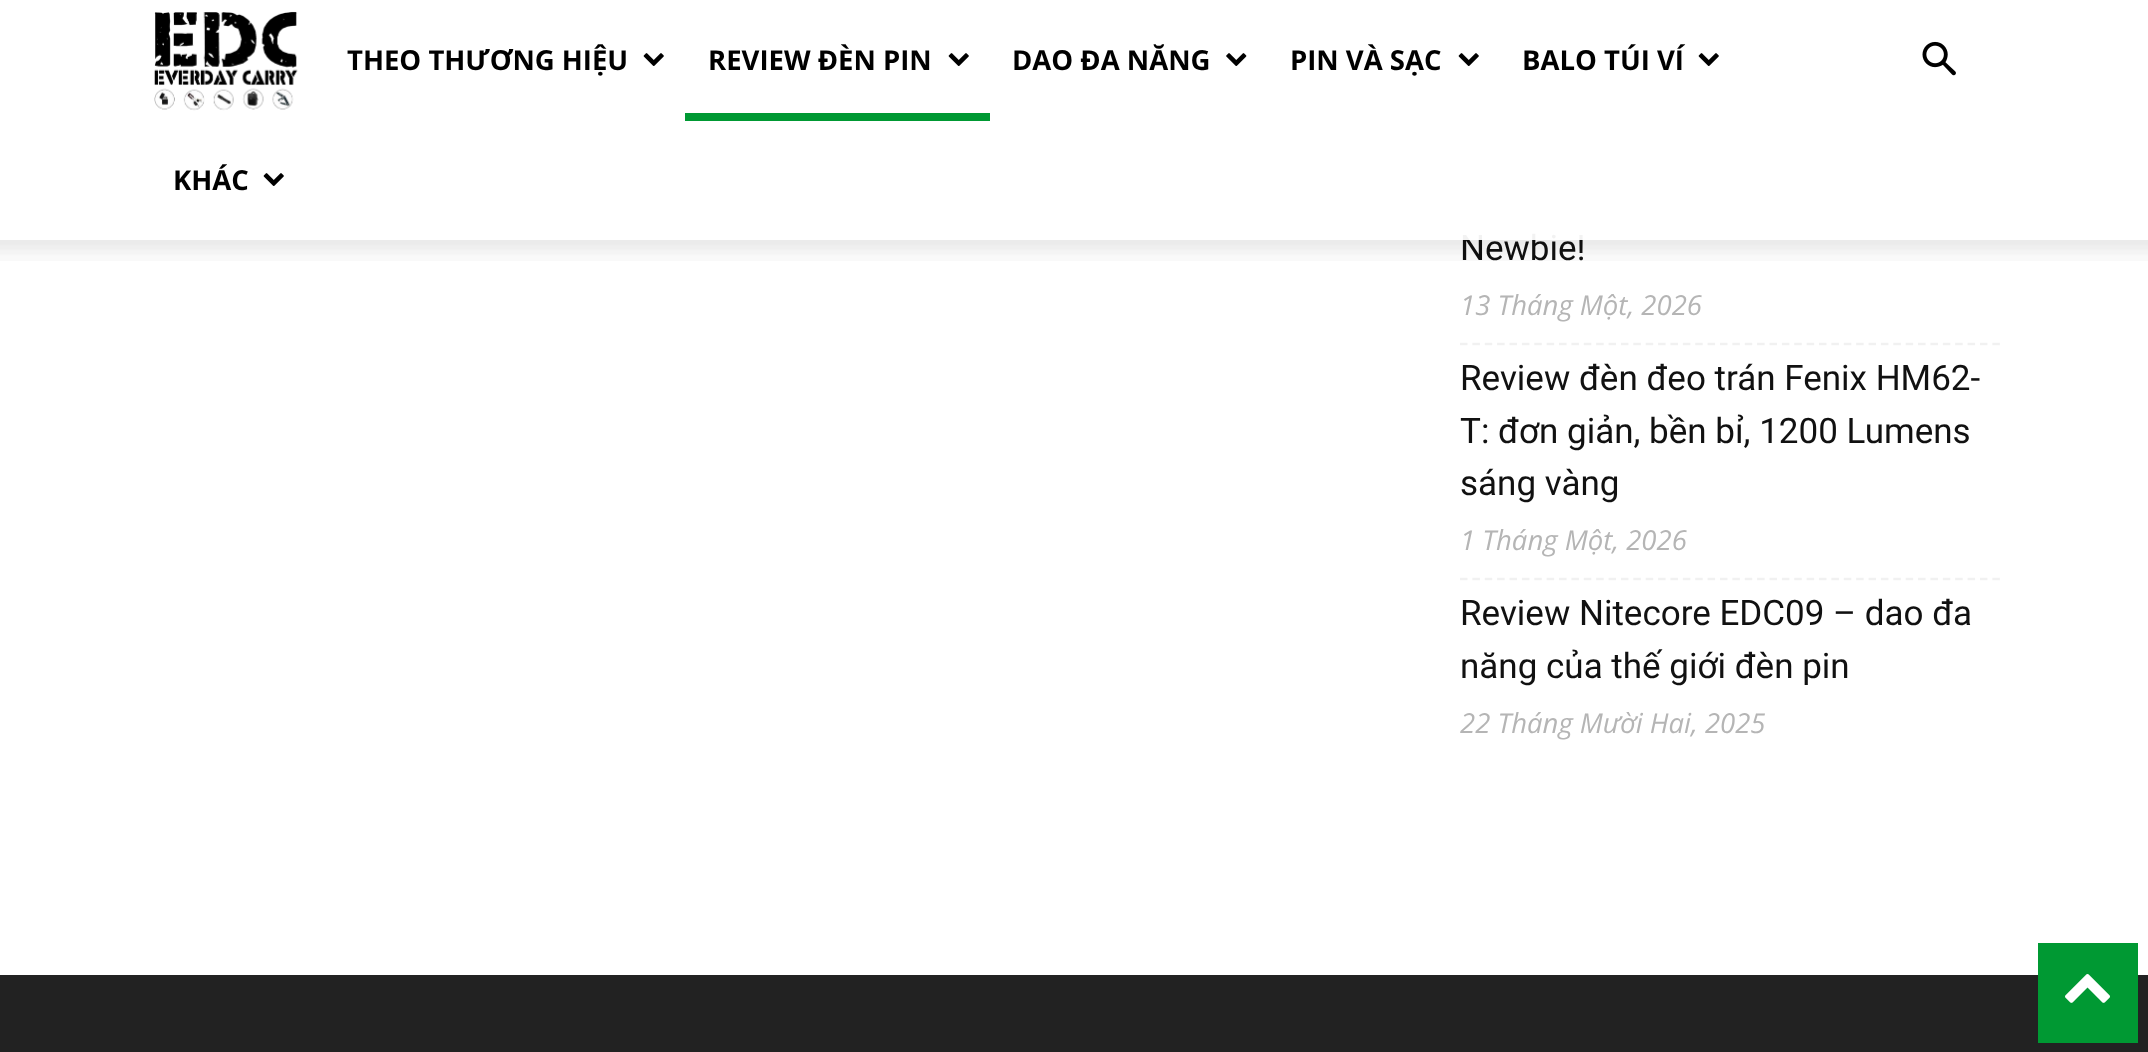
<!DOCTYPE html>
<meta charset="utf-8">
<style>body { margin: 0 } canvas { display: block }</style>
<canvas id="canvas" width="2148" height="1052"></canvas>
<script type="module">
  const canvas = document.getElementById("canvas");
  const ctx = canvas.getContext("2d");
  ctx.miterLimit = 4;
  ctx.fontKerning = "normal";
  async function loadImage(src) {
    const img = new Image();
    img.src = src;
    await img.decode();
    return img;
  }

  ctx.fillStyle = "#ffffff";
  ctx.fillRect(0, 0, 2148, 1052);
  ctx.beginPath();
  ctx.moveTo(1460, 109);
  ctx.lineTo(2000, 109);
  ctx.strokeStyle = "#f1f1f1";
  ctx.lineWidth = 2.5;
  ctx.setLineDash([7.5, 4.88]);
  ctx.stroke();
  ctx.font = "35px Roboto";
  ctx.fillStyle = "#111111";
  ctx.fillText("Newbie!", 1460, 260);
  ctx.fillStyle = "rgba(255, 255, 255, 0.95)";
  ctx.fillRect(1460, 107, 540, 133);
  ctx.drawImage(await loadImage("img1.png"), 154, 11, 144, 100);
  ctx.font = "bold 27.5px Open Sans";
  ctx.fillStyle = "#000000";
  ctx.fillText("THEO THƯƠNG HIỆU", 347, 70);
  ctx.drawImage(await loadImage("img2.png"), 643, 53, 21, 13);
  ctx.fillText("REVIEW ĐÈN PIN", 708, 70);
  ctx.drawImage(await loadImage("img2.png"), 948, 53, 21, 13);
  ctx.fillStyle = "#009933";
  ctx.fillRect(685, 113, 305, 8);
  ctx.fillStyle = "#000000";
  ctx.fillText("DAO ĐA NĂNG", 1012, 70);
  ctx.drawImage(await loadImage("img3.png"), 1226, 53, 21, 13);
  ctx.fillText("PIN VÀ SẠC", 1290, 70);
  ctx.drawImage(await loadImage("img4.png"), 1458, 53, 21, 13);
  ctx.fillText("BALO TÚI VÍ", 1522, 70);
  ctx.drawImage(await loadImage("img5.png"), 1698, 53, 21, 13);
  ctx.fillText("KHÁC", 173, 190);
  ctx.drawImage(await loadImage("img2.png"), 263, 173, 21, 13);
  ctx.drawImage(await loadImage("img6.png"), 1922, 41, 34, 35);
  ctx.drawImage(await loadImage("img7.png"), 0, 240, 2148, 21);
  ctx.beginPath();
  ctx.moveTo(1460, 344);
  ctx.lineTo(2000, 344);
  ctx.stroke();
  ctx.font = "italic 27.5px Open Sans";
  ctx.fillStyle = "#b5b5b5";
  ctx.fillText("13 Tháng Một, 2026", 1460, 315);
  ctx.beginPath();
  ctx.moveTo(1460, 579);
  ctx.lineTo(2000, 579);
  ctx.stroke();
  ctx.font = "35px Roboto";
  ctx.fillStyle = "#111111";
  ctx.fillText("Review đèn đeo trán Fenix HM62-", 1460, 390);
  ctx.fillText("T: đơn giản, bền bỉ, 1200 Lumens", 1460, 443);
  ctx.fillText("sáng vàng", 1460, 495);
  ctx.font = "italic 27.5px Open Sans";
  ctx.fillStyle = "#b5b5b5";
  ctx.fillText("1 Tháng Một, 2026", 1460, 550);
  ctx.font = "35px Roboto";
  ctx.fillStyle = "#111111";
  ctx.fillText("Review Nitecore EDC09 – dao đa", 1460, 625);
  ctx.fillText("năng của thế giới đèn pin", 1460, 678);
  ctx.font = "italic 27.5px Open Sans";
  ctx.fillStyle = "#b5b5b5";
  ctx.fillText("22 Tháng Mười Hai, 2025", 1460, 733);
  ctx.fillStyle = "#222222";
  ctx.fillRect(0, 975, 2148, 77);
  ctx.fillStyle = "#009933";
  ctx.fillRect(2038, 943, 100, 100);
  ctx.drawImage(await loadImage("img8.png"), 2065, 974, 45, 29);
</script>
